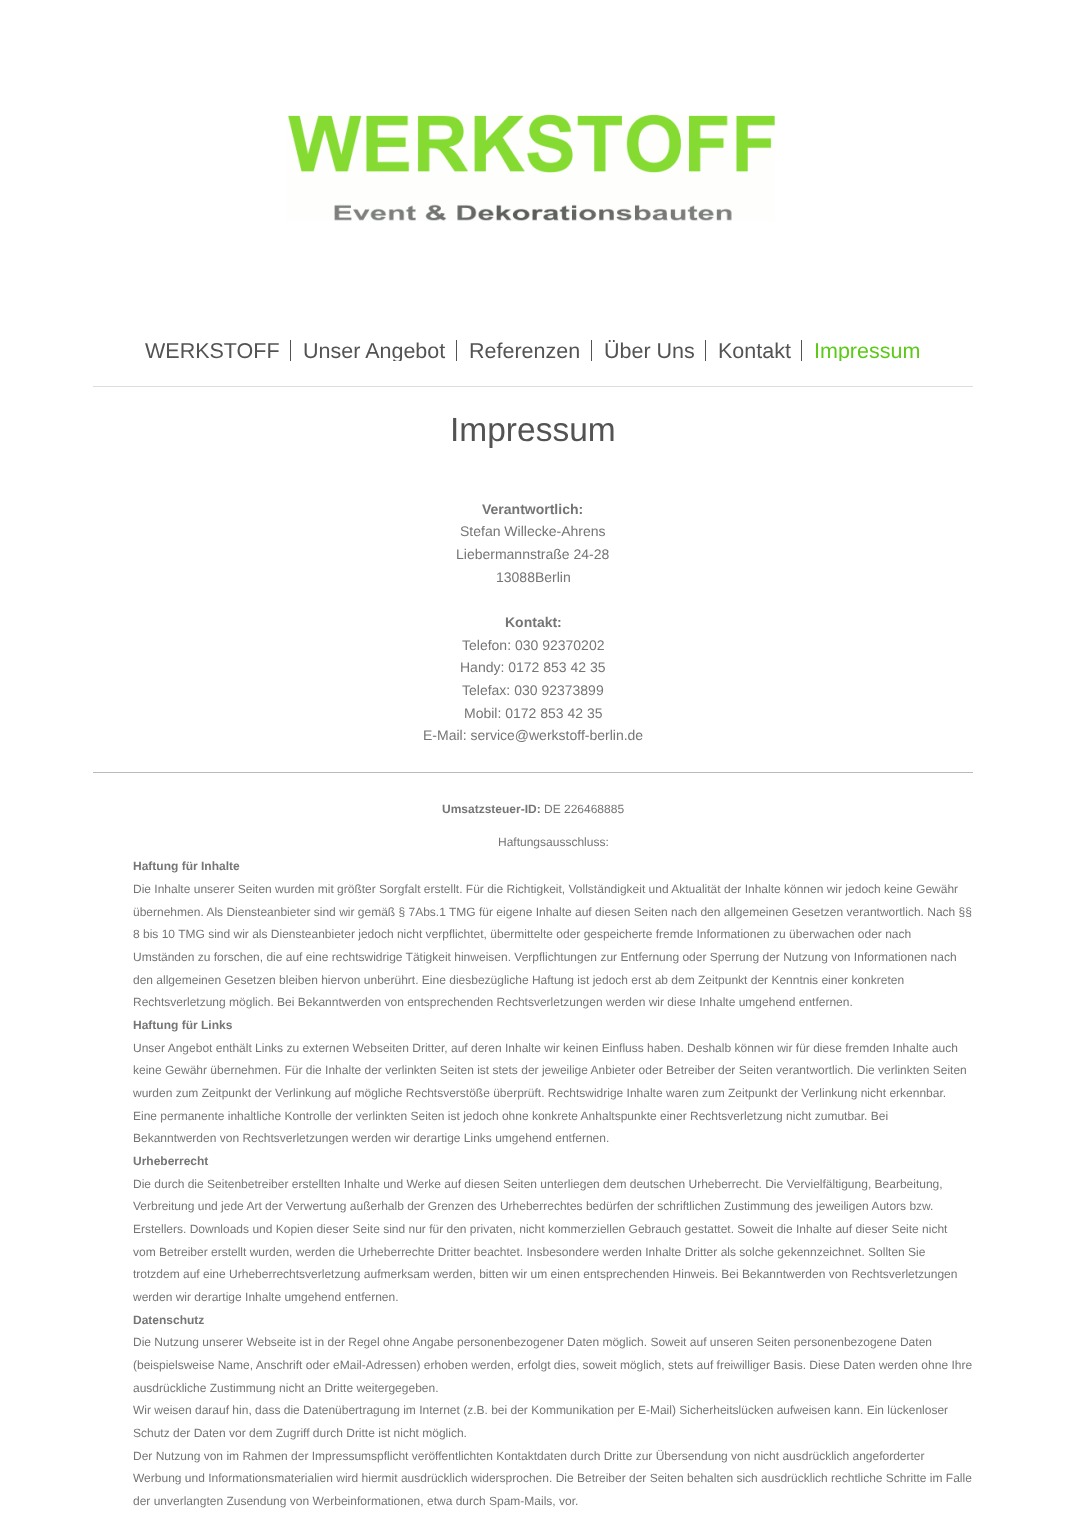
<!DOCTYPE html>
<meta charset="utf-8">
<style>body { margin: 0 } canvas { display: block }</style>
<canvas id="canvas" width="1066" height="1534"></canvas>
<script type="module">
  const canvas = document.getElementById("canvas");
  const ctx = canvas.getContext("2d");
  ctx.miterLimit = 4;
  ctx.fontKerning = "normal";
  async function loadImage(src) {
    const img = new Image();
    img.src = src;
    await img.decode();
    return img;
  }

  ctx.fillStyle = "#ffffff";
  ctx.fillRect(0, 0, 1066, 1534);
  ctx.drawImage(await loadImage("img1.png"), 287, 114, 488, 107);
  ctx.fillStyle = "#dddddd";
  ctx.fillRect(93, 386, 880, 1);
  ctx.fillStyle = "#535353";
  ctx.fillRect(290, 340, 1, 21);
  ctx.font = "21.5px Liberation Sans";
  ctx.fillText("WERKSTOFF", 145, 358);
  ctx.fillRect(456, 340, 1, 21);
  ctx.save();
  ctx.beginPath();
  ctx.rect(293, 340, 163, 21);
  ctx.clip();
  ctx.fillText("Unser Angebot", 303, 358);
  ctx.restore();
  ctx.fillRect(591, 340, 1, 21);
  ctx.fillText("Referenzen", 469, 358);
  ctx.fillRect(705, 340, 1, 21);
  ctx.fillText("Über Uns", 604, 358);
  ctx.fillRect(801, 340, 1, 21);
  ctx.fillText("Kontakt", 718, 358);
  ctx.save();
  ctx.beginPath();
  ctx.rect(804, 340, 127, 21);
  ctx.clip();
  ctx.fillStyle = "#5dca19";
  ctx.fillText("Impressum", 814, 358);
  ctx.restore();
  ctx.font = "33.5px Liberation Sans";
  ctx.fillText("Impressum", 450, 441);
  ctx.font = "bold 14px Liberation Sans";
  ctx.fillStyle = "#757575";
  ctx.fillText("Verantwortlich:", 482, 514);
  ctx.font = "14px Liberation Sans";
  ctx.fillText("Stefan Willecke-Ahrens", 460, 536);
  ctx.fillText("Liebermannstraße 24-28", 456, 559);
  ctx.fillText("13088Berlin", 496, 582);
  ctx.font = "bold 14px Liberation Sans";
  ctx.fillText("Kontakt:", 505, 627);
  ctx.font = "14px Liberation Sans";
  ctx.fillText("Telefon: 030 92370202", 462, 650);
  ctx.fillText("Handy: 0172 853 42 35", 460, 672);
  ctx.fillText("Telefax: 030 92373899", 462, 695);
  ctx.fillText("Mobil: 0172 853 42 35", 464, 718);
  ctx.fillText("E-Mail: service@werkstoff-berlin.de", 423, 740);
  ctx.fillStyle = "#bababa";
  ctx.fillRect(93, 772, 880, 1);
  ctx.font = "bold 12px Liberation Sans";
  ctx.fillStyle = "#757575";
  ctx.fillText("Umsatzsteuer-ID:", 442, 813);
  ctx.font = "12px Liberation Sans";
  ctx.fillText("DE 226468885", 544, 813);
  ctx.fillText("Haftungsausschluss:", 498, 846);
  ctx.font = "bold 12px Liberation Sans";
  ctx.fillText("Haftung für Inhalte", 133, 870);
  ctx.font = "12px Liberation Sans";
  ctx.fillText("Die Inhalte unserer Seiten wurden mit größter Sorgfalt erstellt. Für die Richtigkeit, Vollständigkeit und Aktualität der Inhalte können wir jedoch keine Gewähr", 133, 893);
  ctx.fillText("übernehmen. Als Diensteanbieter sind wir gemäß § 7Abs.1 TMG für eigene Inhalte auf diesen Seiten nach den allgemeinen Gesetzen verantwortlich. Nach §§", 133, 916);
  ctx.fillText("8 bis 10 TMG sind wir als Diensteanbieter jedoch nicht verpflichtet, übermittelte oder gespeicherte fremde Informationen zu überwachen oder nach", 133, 938);
  ctx.fillText("Umständen zu forschen, die auf eine rechtswidrige Tätigkeit hinweisen. Verpflichtungen zur Entfernung oder Sperrung der Nutzung von Informationen nach", 133, 961);
  ctx.fillText("den allgemeinen Gesetzen bleiben hiervon unberührt. Eine diesbezügliche Haftung ist jedoch erst ab dem Zeitpunkt der Kenntnis einer konkreten", 133, 984);
  ctx.fillText("Rechtsverletzung möglich. Bei Bekanntwerden von entsprechenden Rechtsverletzungen werden wir diese Inhalte umgehend entfernen.", 133, 1006);
  ctx.font = "bold 12px Liberation Sans";
  ctx.fillText("Haftung für Links", 133, 1029);
  ctx.font = "12px Liberation Sans";
  ctx.fillText("Unser Angebot enthält Links zu externen Webseiten Dritter, auf deren Inhalte wir keinen Einfluss haben. Deshalb können wir für diese fremden Inhalte auch", 133, 1052);
  ctx.fillText("keine Gewähr übernehmen. Für die Inhalte der verlinkten Seiten ist stets der jeweilige Anbieter oder Betreiber der Seiten verantwortlich. Die verlinkten Seiten", 133, 1074);
  ctx.fillText("wurden zum Zeitpunkt der Verlinkung auf mögliche Rechtsverstöße überprüft. Rechtswidrige Inhalte waren zum Zeitpunkt der Verlinkung nicht erkennbar.", 133, 1097);
  ctx.fillText("Eine permanente inhaltliche Kontrolle der verlinkten Seiten ist jedoch ohne konkrete Anhaltspunkte einer Rechtsverletzung nicht zumutbar. Bei", 133, 1120);
  ctx.fillText("Bekanntwerden von Rechtsverletzungen werden wir derartige Links umgehend entfernen.", 133, 1142);
  ctx.font = "bold 12px Liberation Sans";
  ctx.fillText("Urheberrecht", 133, 1165);
  ctx.font = "12px Liberation Sans";
  ctx.fillText("Die durch die Seitenbetreiber erstellten Inhalte und Werke auf diesen Seiten unterliegen dem deutschen Urheberrecht. Die Vervielfältigung, Bearbeitung,", 133, 1188);
  ctx.fillText("Verbreitung und jede Art der Verwertung außerhalb der Grenzen des Urheberrechtes bedürfen der schriftlichen Zustimmung des jeweiligen Autors bzw.", 133, 1210);
  ctx.fillText("Erstellers. Downloads und Kopien dieser Seite sind nur für den privaten, nicht kommerziellen Gebrauch gestattet. Soweit die Inhalte auf dieser Seite nicht", 133, 1233);
  ctx.fillText("vom Betreiber erstellt wurden, werden die Urheberrechte Dritter beachtet. Insbesondere werden Inhalte Dritter als solche gekennzeichnet. Sollten Sie", 133, 1256);
  ctx.fillText("trotzdem auf eine Urheberrechtsverletzung aufmerksam werden, bitten wir um einen entsprechenden Hinweis. Bei Bekanntwerden von Rechtsverletzungen", 133, 1278);
  ctx.fillText("werden wir derartige Inhalte umgehend entfernen.", 133, 1301);
  ctx.font = "bold 12px Liberation Sans";
  ctx.fillText("Datenschutz", 133, 1324);
  ctx.font = "12px Liberation Sans";
  ctx.fillText("Die Nutzung unserer Webseite ist in der Regel ohne Angabe personenbezogener Daten möglich. Soweit auf unseren Seiten personenbezogene Daten", 133, 1346);
  ctx.fillText("(beispielsweise Name, Anschrift oder eMail-Adressen) erhoben werden, erfolgt dies, soweit möglich, stets auf freiwilliger Basis. Diese Daten werden ohne Ihre", 133, 1369);
  ctx.fillText("ausdrückliche Zustimmung nicht an Dritte weitergegeben.", 133, 1392);
  ctx.fillText("Wir weisen darauf hin, dass die Datenübertragung im Internet (z.B. bei der Kommunikation per E-Mail) Sicherheitslücken aufweisen kann. Ein lückenloser", 133, 1414);
  ctx.fillText("Schutz der Daten vor dem Zugriff durch Dritte ist nicht möglich.", 133, 1437);
  ctx.fillText("Der Nutzung von im Rahmen der Impressumspflicht veröffentlichten Kontaktdaten durch Dritte zur Übersendung von nicht ausdrücklich angeforderter", 133, 1460);
  ctx.fillText("Werbung und Informationsmaterialien wird hiermit ausdrücklich widersprochen. Die Betreiber der Seiten behalten sich ausdrücklich rechtliche Schritte im Falle", 133, 1482);
  ctx.fillText("der unverlangten Zusendung von Werbeinformationen, etwa durch Spam-Mails, vor.", 133, 1505);
</script>
